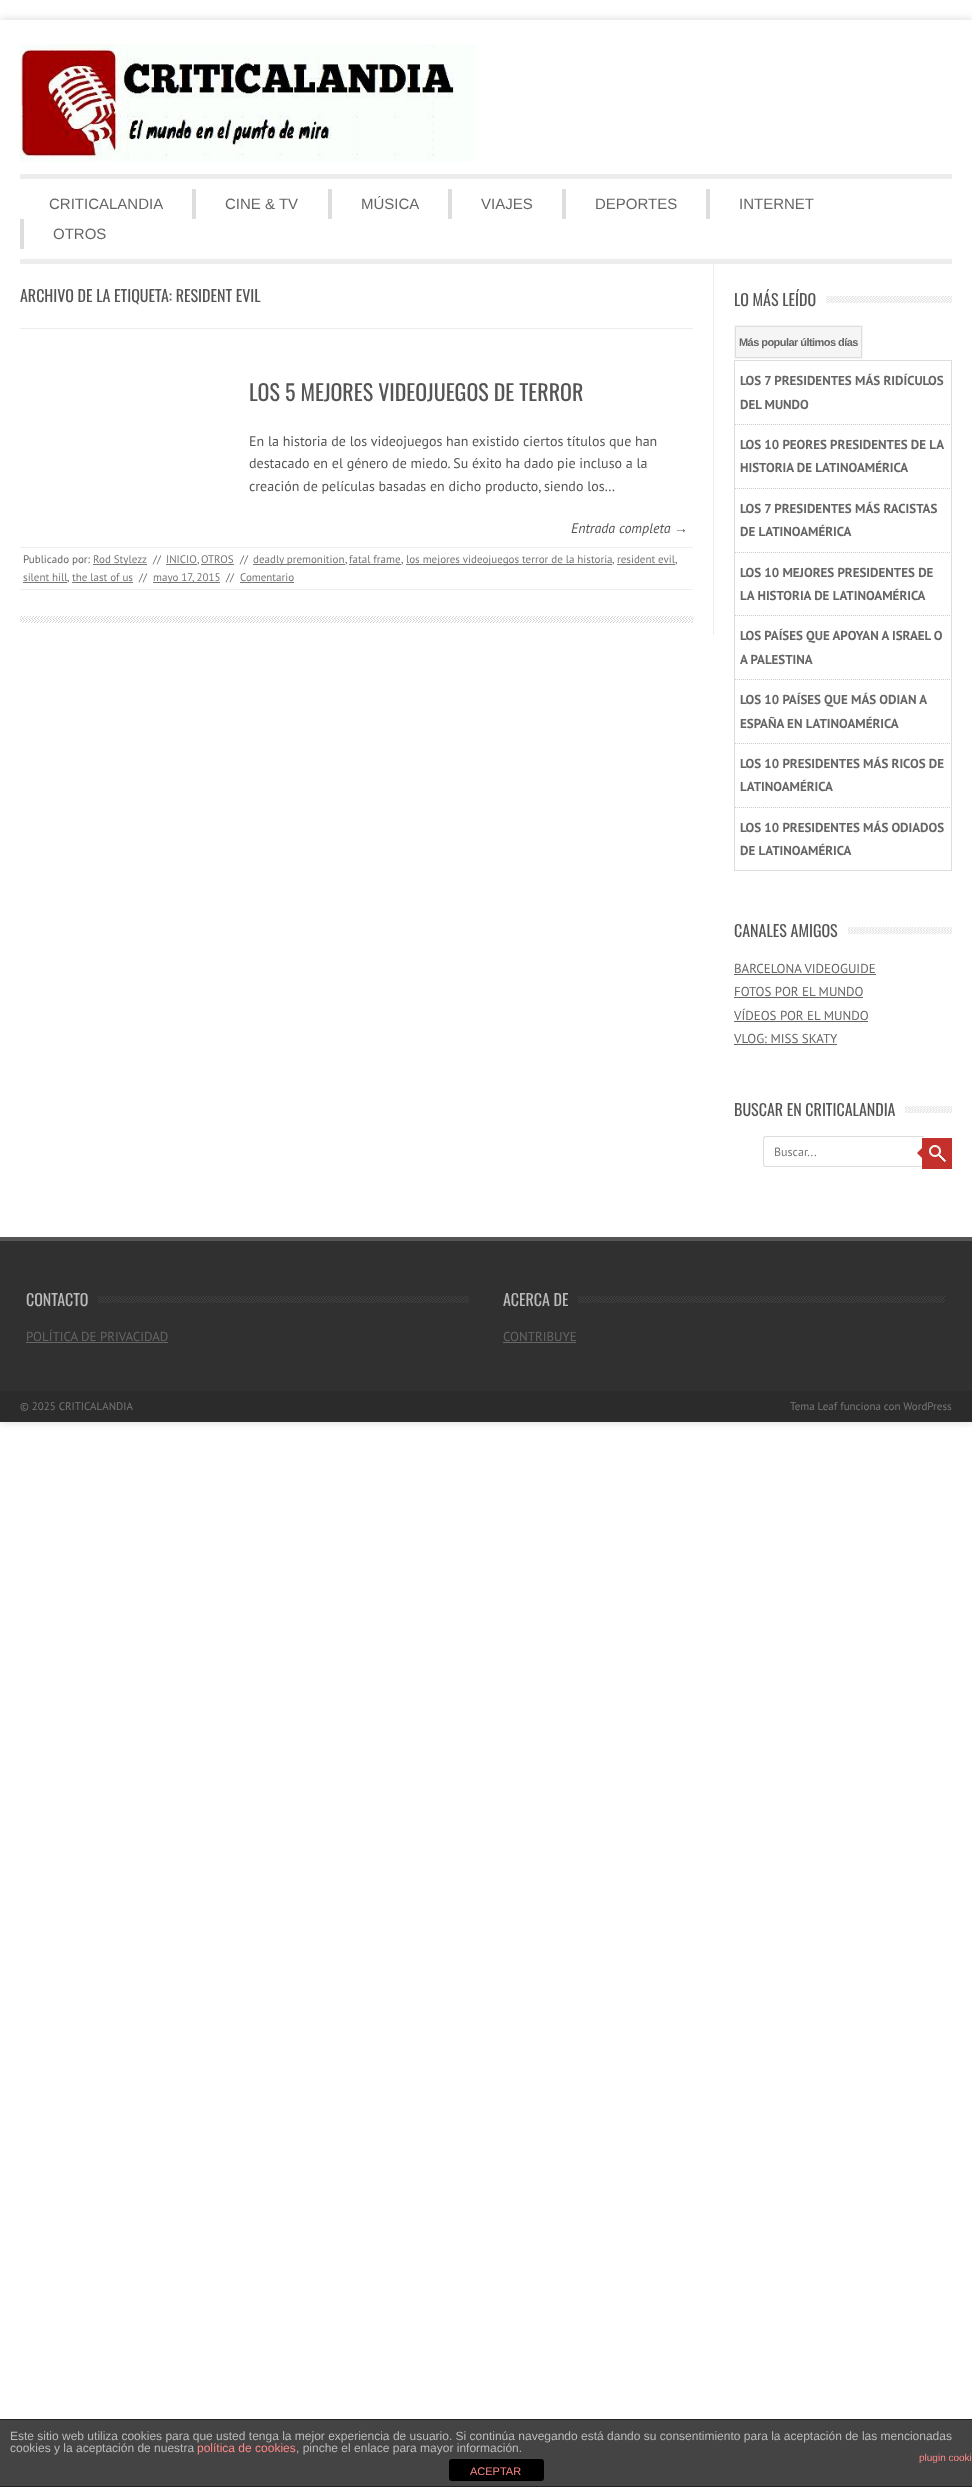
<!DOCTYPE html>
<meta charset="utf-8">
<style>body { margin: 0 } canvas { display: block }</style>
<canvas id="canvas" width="972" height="2487"></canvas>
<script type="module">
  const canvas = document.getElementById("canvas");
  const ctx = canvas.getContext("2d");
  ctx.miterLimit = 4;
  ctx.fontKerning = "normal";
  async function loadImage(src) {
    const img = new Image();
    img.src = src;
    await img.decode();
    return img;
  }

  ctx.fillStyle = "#ffffff";
  ctx.fillRect(0, 0, 972, 2487);
  ctx.save();
  ctx.beginPath();
  ctx.moveTo(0, 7);
  ctx.lineTo(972, 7);
  ctx.lineTo(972, 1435);
  ctx.lineTo(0, 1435);
  ctx.closePath();
  ctx.moveTo(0, 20);
  ctx.lineTo(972, 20);
  ctx.lineTo(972, 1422);
  ctx.lineTo(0, 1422);
  ctx.closePath();
  ctx.clip("evenodd");
  ctx.fillStyle = "rgba(150, 150, 150, 0.4)";
  ctx.filter = "blur(4px)";
  ctx.beginPath();
  ctx.rect(0, 20, 972, 1402);
  ctx.fill();
  ctx.filter = "none";
  ctx.restore();
  ctx.drawImage(await loadImage("img1.png"), 20, 44, 456, 118);
  ctx.fillStyle = "#ededed";
  ctx.fillRect(20, 174, 932, 5);
  ctx.fillRect(20, 259, 932, 5);
  ctx.font = "15px Liberation Sans";
  ctx.fillStyle = "#666666";
  ctx.fillText("CRITICALANDIA", 49, 209);
  ctx.fillStyle = "#dddddd";
  ctx.fillRect(192, 189, 4, 30);
  ctx.fillStyle = "#666666";
  ctx.fillText("CINE & TV", 225, 209);
  ctx.fillStyle = "#dddddd";
  ctx.fillRect(328, 189, 4, 30);
  ctx.fillStyle = "#666666";
  ctx.fillText("MÚSICA", 361, 209);
  ctx.fillStyle = "#dddddd";
  ctx.fillRect(448, 189, 4, 30);
  ctx.fillStyle = "#666666";
  ctx.fillText("VIAJES", 481, 209);
  ctx.fillStyle = "#dddddd";
  ctx.fillRect(562, 189, 4, 30);
  ctx.fillStyle = "#666666";
  ctx.fillText("DEPORTES", 595, 209);
  ctx.fillStyle = "#dddddd";
  ctx.fillRect(706, 189, 4, 30);
  ctx.fillStyle = "#666666";
  ctx.fillText("INTERNET", 739, 209);
  ctx.fillStyle = "#dddddd";
  ctx.fillRect(20, 219, 4, 30);
  ctx.fillStyle = "#666666";
  ctx.fillText("OTROS", 53, 239);
  ctx.fillStyle = "#ededed";
  ctx.fillRect(713, 264, 1, 371);
  ctx.fillRect(20, 328, 673, 1);
  ctx.font = "16px Oswald";
  ctx.fillStyle = "#555555";
  ctx.fillText("ARCHIVO DE LA ETIQUETA: RESIDENT EVIL", 20, 302);
  ctx.font = "22px Oswald";
  ctx.fillText("LOS 5 MEJORES VIDEOJUEGOS DE TERROR", 249, 401);
  ctx.font = "14px PT Sans";
  ctx.fillText("En la historia de los videojuegos han existido ciertos títulos que han", 249, 446);
  ctx.fillText("destacado en el género de miedo. Su éxito ha dado pie incluso a la", 249, 468);
  ctx.fillText("creación de películas basadas en dicho producto, siendo los…", 249, 491);
  ctx.font = "italic 14px PT Sans";
  ctx.fillText("Entrada completa", 571, 533);
  ctx.font = "italic 14px Liberation Sans";
  ctx.fillText("→", 674, 533);
  ctx.fillStyle = "#eeeeee";
  ctx.fillRect(20, 547, 673, 1);
  ctx.fillRect(20, 589, 673, 1);
  ctx.font = "11px PT Sans";
  ctx.fillStyle = "#666666";
  ctx.fillText("Publicado por:", 23, 563);
  ctx.fillStyle = "#777777";
  ctx.fillRect(93, 564, 54, 1);
  ctx.fillText("Rod Stylezz", 93, 563);
  ctx.fillStyle = "#666666";
  ctx.fillText("//", 153, 563);
  ctx.fillStyle = "#777777";
  ctx.fillText("INICIO", 166, 563);
  ctx.fillRect(166, 564, 31, 1);
  ctx.fillStyle = "#666666";
  ctx.fillText(",", 197, 563);
  ctx.fillStyle = "#777777";
  ctx.fillText("OTROS", 201, 563);
  ctx.fillRect(201, 564, 33, 1);
  ctx.fillStyle = "#666666";
  ctx.fillText("//", 240, 563);
  ctx.fillStyle = "#777777";
  ctx.fillRect(253, 564, 92, 1);
  ctx.fillText("deadly premonition", 253, 563);
  ctx.fillStyle = "#666666";
  ctx.fillText(",", 345, 563);
  ctx.fillStyle = "#777777";
  ctx.fillText("fatal frame", 349, 563);
  ctx.fillRect(349, 564, 52, 1);
  ctx.fillStyle = "#666666";
  ctx.fillText(",", 401, 563);
  ctx.fillStyle = "#777777";
  ctx.fillRect(406, 564, 206, 1);
  ctx.fillText("los mejores videojuegos terror de la historia", 406, 563);
  ctx.fillStyle = "#666666";
  ctx.fillText(",", 612, 563);
  ctx.fillStyle = "#777777";
  ctx.fillText("resident evil", 617, 563);
  ctx.fillRect(617, 564, 58, 1);
  ctx.fillStyle = "#666666";
  ctx.fillText(",", 675, 563);
  ctx.fillStyle = "#777777";
  ctx.fillText("silent hill", 23, 581);
  ctx.fillRect(23, 582, 44, 1);
  ctx.fillStyle = "#666666";
  ctx.fillText(",", 67, 581);
  ctx.fillStyle = "#777777";
  ctx.fillText("the last of us", 72, 581);
  ctx.fillRect(72, 582, 61, 1);
  ctx.fillStyle = "#666666";
  ctx.fillText("//", 139, 581);
  ctx.fillStyle = "#777777";
  ctx.fillRect(153, 582, 67, 1);
  ctx.fillText("mayo 17, 2015", 153, 581);
  ctx.fillStyle = "#666666";
  ctx.fillText("//", 226, 581);
  ctx.fillStyle = "#777777";
  ctx.fillText("Comentario", 240, 581);
  ctx.fillRect(240, 582, 54, 1);
  ctx.drawImage(await loadImage("img2.png"), 20, 616, 673, 7);
  ctx.drawImage(await loadImage("img3.png"), 826, 296, 126, 7);
  ctx.font = "16px Oswald";
  ctx.fillStyle = "#555555";
  ctx.fillText("LO MÁS LEÍDO", 734, 306);
  ctx.strokeStyle = "#f5f5f5";
  ctx.strokeRect(734.5, 325.5, 128, 33);
  ctx.fillStyle = "#f5f5f5";
  ctx.beginPath();
  ctx.rect(735.5, 326.5, 126, 31);
  ctx.fill();
  ctx.strokeStyle = "#dddddd";
  ctx.stroke();
  ctx.letterSpacing = "-0.55px";
  ctx.font = "bold 11px Liberation Sans";
  ctx.fillStyle = "#666666";
  ctx.fillText("Más popular últimos días", 739, 346);
  ctx.strokeRect(734.5, 360.5, 217, 510);
  ctx.beginPath();
  ctx.moveTo(735, 424.5);
  ctx.lineTo(951, 424.5);
  ctx.strokeStyle = "#cccccc";
  ctx.setLineDash([1, 1]);
  ctx.stroke();
  ctx.letterSpacing = "0px";
  ctx.font = "bold 13px PT Sans";
  ctx.fillText("LOS 7 PRESIDENTES MÁS RIDÍCULOS", 740, 385);
  ctx.fillText("DEL MUNDO", 740, 409);
  ctx.beginPath();
  ctx.moveTo(735, 488.5);
  ctx.lineTo(951, 488.5);
  ctx.stroke();
  ctx.fillText("LOS 10 PEORES PRESIDENTES DE LA", 740, 449);
  ctx.fillText("HISTORIA DE LATINOAMÉRICA", 740, 472);
  ctx.beginPath();
  ctx.moveTo(735, 552.5);
  ctx.lineTo(951, 552.5);
  ctx.stroke();
  ctx.fillText("LOS 7 PRESIDENTES MÁS RACISTAS", 740, 513);
  ctx.fillText("DE LATINOAMÉRICA", 740, 536);
  ctx.beginPath();
  ctx.moveTo(735, 615.5);
  ctx.lineTo(951, 615.5);
  ctx.stroke();
  ctx.fillText("LOS 10 MEJORES PRESIDENTES DE", 740, 577);
  ctx.fillText("LA HISTORIA DE LATINOAMÉRICA", 740, 600);
  ctx.beginPath();
  ctx.moveTo(735, 679.5);
  ctx.lineTo(951, 679.5);
  ctx.stroke();
  ctx.fillText("LOS PAÍSES QUE APOYAN A ISRAEL O", 740, 640);
  ctx.fillText("A PALESTINA", 740, 664);
  ctx.beginPath();
  ctx.moveTo(735, 743.5);
  ctx.lineTo(951, 743.5);
  ctx.stroke();
  ctx.fillText("LOS 10 PAÍSES QUE MÁS ODIAN A", 740, 704);
  ctx.fillText("ESPAÑA EN LATINOAMÉRICA", 740, 728);
  ctx.beginPath();
  ctx.moveTo(735, 807.5);
  ctx.lineTo(951, 807.5);
  ctx.stroke();
  ctx.fillText("LOS 10 PRESIDENTES MÁS RICOS DE", 740, 768);
  ctx.fillText("LATINOAMÉRICA", 740, 791);
  ctx.fillText("LOS 10 PRESIDENTES MÁS ODIADOS", 740, 832);
  ctx.fillText("DE LATINOAMÉRICA", 740, 855);
  ctx.drawImage(await loadImage("img4.png"), 848, 927, 104, 7);
  ctx.font = "16px Oswald";
  ctx.fillStyle = "#555555";
  ctx.fillText("CANALES AMIGOS", 734, 937);
  ctx.font = "13px PT Sans";
  ctx.fillStyle = "#666666";
  ctx.fillText("BARCELONA VIDEOGUIDE", 734, 973);
  ctx.fillRect(734, 974, 142, 1);
  ctx.fillText("FOTOS POR EL MUNDO", 734, 996);
  ctx.fillRect(734, 997, 129, 1);
  ctx.fillText("VÍDEOS POR EL MUNDO", 734, 1020);
  ctx.fillRect(734, 1021, 134, 1);
  ctx.fillText("VLOG: MISS SKATY", 734, 1043);
  ctx.fillRect(734, 1044, 103, 1);
  ctx.drawImage(await loadImage("img5.png"), 905, 1106, 47, 7);
  ctx.font = "16px Oswald";
  ctx.fillStyle = "#555555";
  ctx.fillText("BUSCAR EN CRITICALANDIA", 734, 1116);
  ctx.fillStyle = "#dddddd";
  ctx.beginPath();
  ctx.moveTo(766, 1136);
  ctx.lineTo(924, 1136);
  ctx.lineTo(924, 1167);
  ctx.lineTo(766, 1167);
  ctx.bezierCurveTo(764, 1167, 763, 1166, 763, 1164);
  ctx.lineTo(763, 1139);
  ctx.bezierCurveTo(763, 1137, 764, 1136, 766, 1136);
  ctx.closePath();
  ctx.moveTo(766, 1137);
  ctx.lineTo(924, 1137);
  ctx.lineTo(924, 1166);
  ctx.lineTo(766, 1166);
  ctx.bezierCurveTo(765, 1166, 764, 1165, 764, 1164);
  ctx.lineTo(764, 1139);
  ctx.bezierCurveTo(764, 1138, 765, 1137, 766, 1137);
  ctx.closePath();
  ctx.fill("evenodd");
  ctx.font = "12px PT Sans";
  ctx.fillStyle = "#777777";
  ctx.fillText("Buscar...", 774, 1156);
  ctx.fillStyle = "#c4302b";
  ctx.fillRect(922, 1138, 30, 31);
  ctx.drawImage(await loadImage("img6.png"), 929, 1145, 17, 17);
  ctx.beginPath();
  ctx.moveTo(922, 1148);
  ctx.lineTo(922, 1158);
  ctx.lineTo(917, 1153);
  ctx.closePath();
  ctx.fill();
  ctx.fillStyle = "#303030";
  ctx.fillRect(0, 1241, 972, 150);
  ctx.fillStyle = "#555555";
  ctx.fillRect(0, 1237, 972, 4);
  ctx.drawImage(await loadImage("img7.png"), 98, 1296, 371, 7);
  ctx.font = "16px Oswald";
  ctx.fillStyle = "#bbbbbb";
  ctx.fillText("CONTACTO", 26, 1306);
  ctx.font = "13px PT Sans";
  ctx.fillStyle = "#666666";
  ctx.fillText("POLÍTICA DE PRIVACIDAD", 26, 1341);
  ctx.fillRect(26, 1342, 142, 1);
  ctx.drawImage(await loadImage("img8.png"), 578, 1296, 367, 7);
  ctx.font = "16px Oswald";
  ctx.fillStyle = "#bbbbbb";
  ctx.fillText("ACERCA DE", 503, 1306);
  ctx.font = "13px PT Sans";
  ctx.fillStyle = "#666666";
  ctx.fillText("CONTRIBUYE", 503, 1341);
  ctx.fillRect(503, 1342, 73, 1);
  ctx.fillStyle = "#2b2b2b";
  ctx.fillRect(0, 1391, 972, 31);
  ctx.font = "11px PT Sans";
  ctx.fillStyle = "#777777";
  ctx.fillText("© 2025 CRITICALANDIA", 20, 1410);
  ctx.fillText("Tema Leaf funciona con WordPress", 790, 1410);
  ctx.fillStyle = "#444444";
  ctx.fillRect(0, 2420, 972, 66);
  ctx.fillStyle = "#222222";
  ctx.fillRect(0, 2419, 972, 1);
  ctx.fillRect(0, 2486, 972, 1);
  ctx.font = "12px Liberation Sans";
  ctx.fillStyle = "#bbbbbb";
  ctx.fillText("Este sitio web utiliza cookies para que usted tenga la mejor experiencia de usuario. Si continúa navegando está dando su consentimiento para la aceptación de las mencionadas", 10, 2440);
  ctx.fillText("cookies y la aceptación de nuestra", 10, 2452);
  ctx.fillStyle = "#ff8888";
  ctx.fillText("política de cookies", 197, 2452);
  ctx.fillStyle = "#bbbbbb";
  ctx.fillText(", pinche el enlace para mayor información.", 296, 2452);
  ctx.font = "10px Liberation Sans";
  ctx.fillStyle = "#ff8888";
  ctx.fillText("plugin cooki", 919, 2461);
  ctx.fillStyle = "#000000";
  ctx.beginPath();
  ctx.roundRect(449, 2459, 95, 22, 3);
  ctx.fill();
  ctx.font = "11px Liberation Sans";
  ctx.fillStyle = "#ff8888";
  ctx.fillText("ACEPTAR", 470, 2475);
</script>
